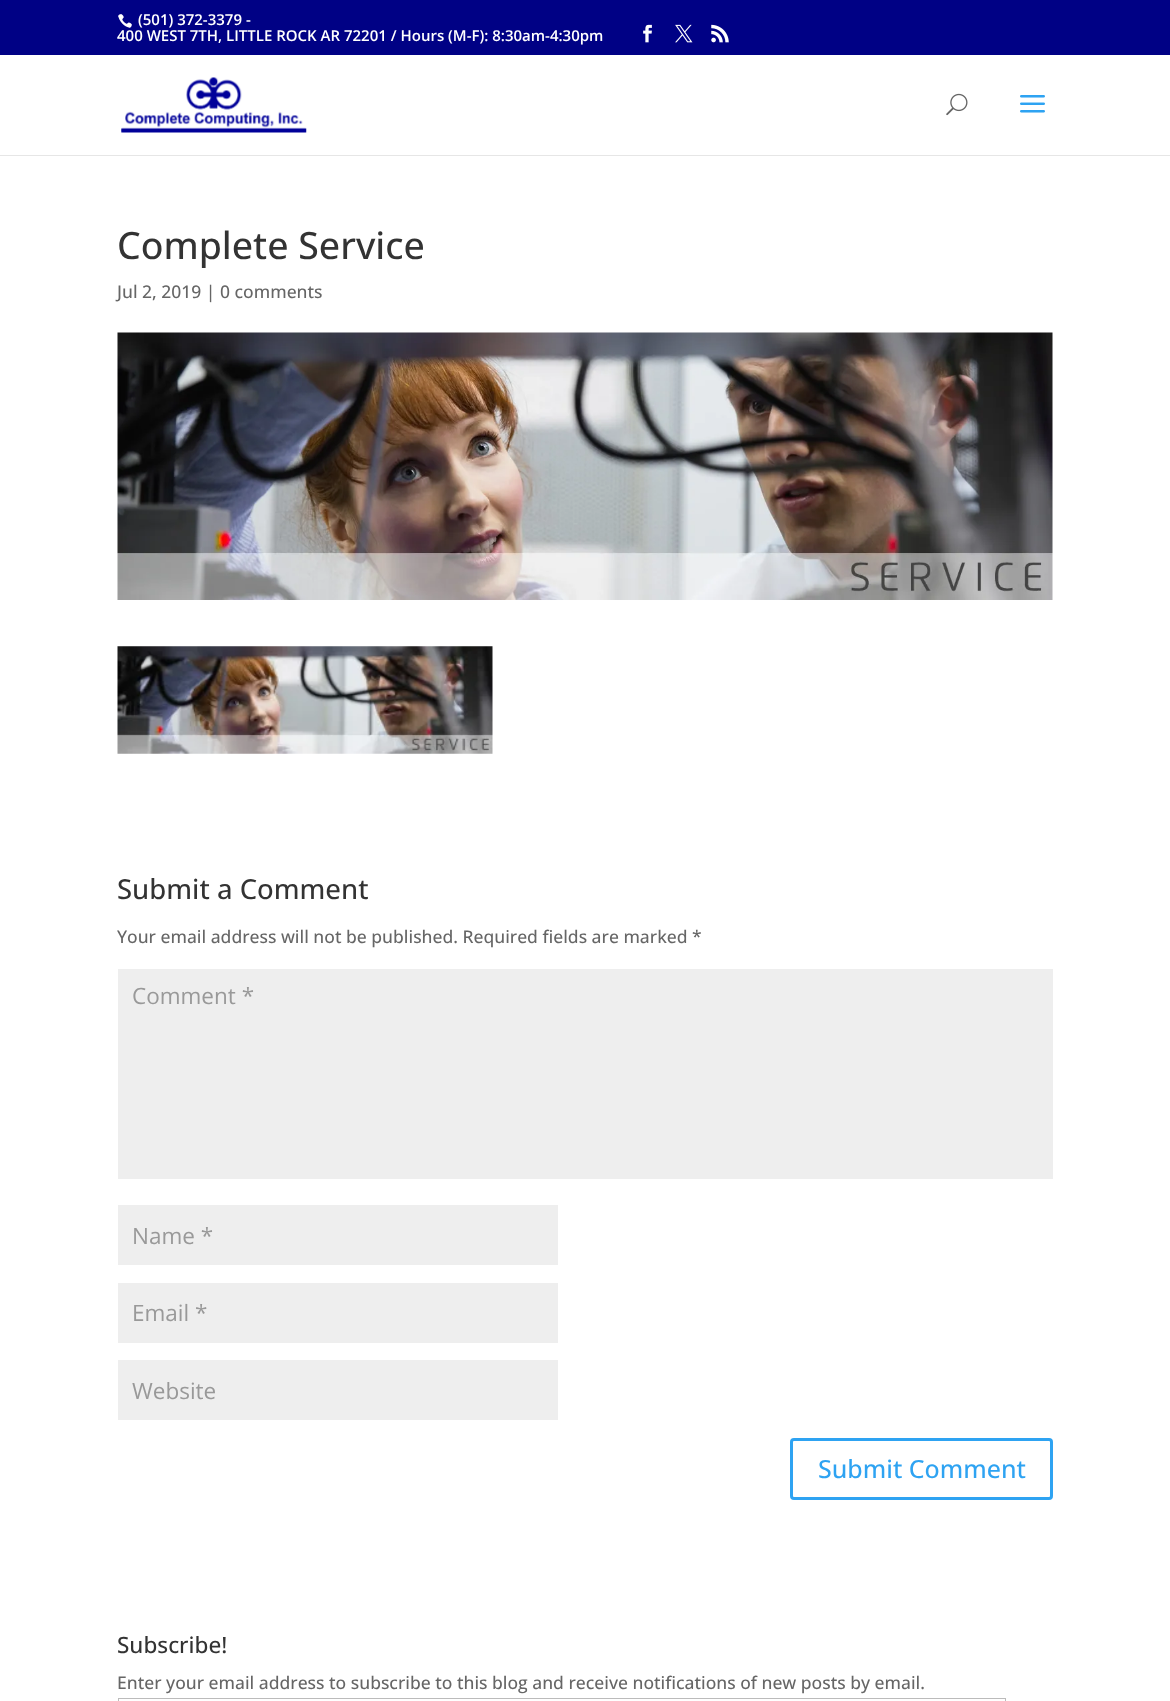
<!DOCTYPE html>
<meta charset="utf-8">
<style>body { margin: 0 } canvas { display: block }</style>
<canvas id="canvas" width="1170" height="1701"></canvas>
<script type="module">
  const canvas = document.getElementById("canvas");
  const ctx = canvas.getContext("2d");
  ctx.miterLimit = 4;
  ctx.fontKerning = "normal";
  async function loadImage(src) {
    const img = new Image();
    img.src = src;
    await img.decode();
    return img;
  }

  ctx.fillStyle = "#ffffff";
  ctx.fillRect(0, 0, 1170, 1701);
  ctx.fillStyle = "#000185";
  ctx.fillRect(0, 0, 1170, 55);
  ctx.drawImage(await loadImage("img1.png"), 118, 14, 14, 14);
  ctx.font = "600 15px Open Sans";
  ctx.fillStyle = "#ffffff";
  ctx.fillText("(501) 372-3379 -", 138, 25);
  ctx.fillText("400 WEST 7TH, LITTLE ROCK AR 72201 / Hours (M-F): 8:30am-4:30pm", 117, 41);
  ctx.drawImage(await loadImage("img2.png"), 643, 24, 9, 19);
  ctx.drawImage(await loadImage("img3.png"), 675, 24, 18, 19);
  ctx.drawImage(await loadImage("img4.png"), 711, 24, 18, 19);
  ctx.fillStyle = "#e6e6e6";
  ctx.fillRect(0, 155, 1170, 1);
  ctx.drawImage(await loadImage("img5.png"), 121, 77, 186, 56);
  ctx.drawImage(await loadImage("img6.png"), 946, 93, 22, 23);
  ctx.drawImage(await loadImage("img7.png"), 1020, 95, 25, 18);
  ctx.font = "500 37.5px Open Sans";
  ctx.fillStyle = "#333333";
  ctx.fillText("Complete Service", 117, 259);
  ctx.font = "500 17.5px Open Sans";
  ctx.fillStyle = "#666666";
  ctx.fillText("Jul 2, 2019 | 0 comments", 117, 298);
  ctx.drawImage(await loadImage("img8.png"), 117, 332, 936, 268);
  ctx.drawImage(await loadImage("img9.png"), 117, 646, 376, 108);
  ctx.font = "500 27.5px Open Sans";
  ctx.fillStyle = "#333333";
  ctx.fillText("Submit a Comment", 117, 899);
  ctx.font = "500 17.5px Open Sans";
  ctx.fillStyle = "#666666";
  ctx.fillText("Your email address will not be published. Required fields are marked *", 117, 943);
  ctx.fillStyle = "#eeeeee";
  ctx.fillRect(118, 969, 935, 210);
  ctx.font = "22.5px Open Sans";
  ctx.fillStyle = "#999999";
  ctx.fillText("Comment *", 132, 1004);
  ctx.fillStyle = "#eeeeee";
  ctx.fillRect(118, 1205, 440, 60);
  ctx.fillStyle = "#999999";
  ctx.fillText("Name *", 132, 1244);
  ctx.fillStyle = "#eeeeee";
  ctx.fillRect(118, 1283, 440, 60);
  ctx.fillStyle = "#999999";
  ctx.fillText("Email *", 132, 1321);
  ctx.fillStyle = "#eeeeee";
  ctx.fillRect(118, 1360, 440, 60);
  ctx.fillStyle = "#999999";
  ctx.fillText("Website", 132, 1399);
  ctx.beginPath();
  ctx.roundRect(791.5, 1439.5, 260, 59, 2.5);
  ctx.strokeStyle = "#2ea3f2";
  ctx.lineWidth = 3;
  ctx.stroke();
  ctx.font = "500 25px Open Sans";
  ctx.fillStyle = "#2ea3f2";
  ctx.fillText("Submit Comment", 818, 1478);
  ctx.font = "500 22.5px Open Sans";
  ctx.fillStyle = "#333333";
  ctx.fillText("Subscribe!", 117, 1653);
  ctx.font = "500 17.5px Open Sans";
  ctx.fillStyle = "#666666";
  ctx.fillText("Enter your email address to subscribe to this blog and receive notifications of new posts by email.", 117, 1689);
  ctx.strokeStyle = "#bbbbbb";
  ctx.lineWidth = 1;
  ctx.strokeRect(118.5, 1698.5, 887, 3);
</script>
